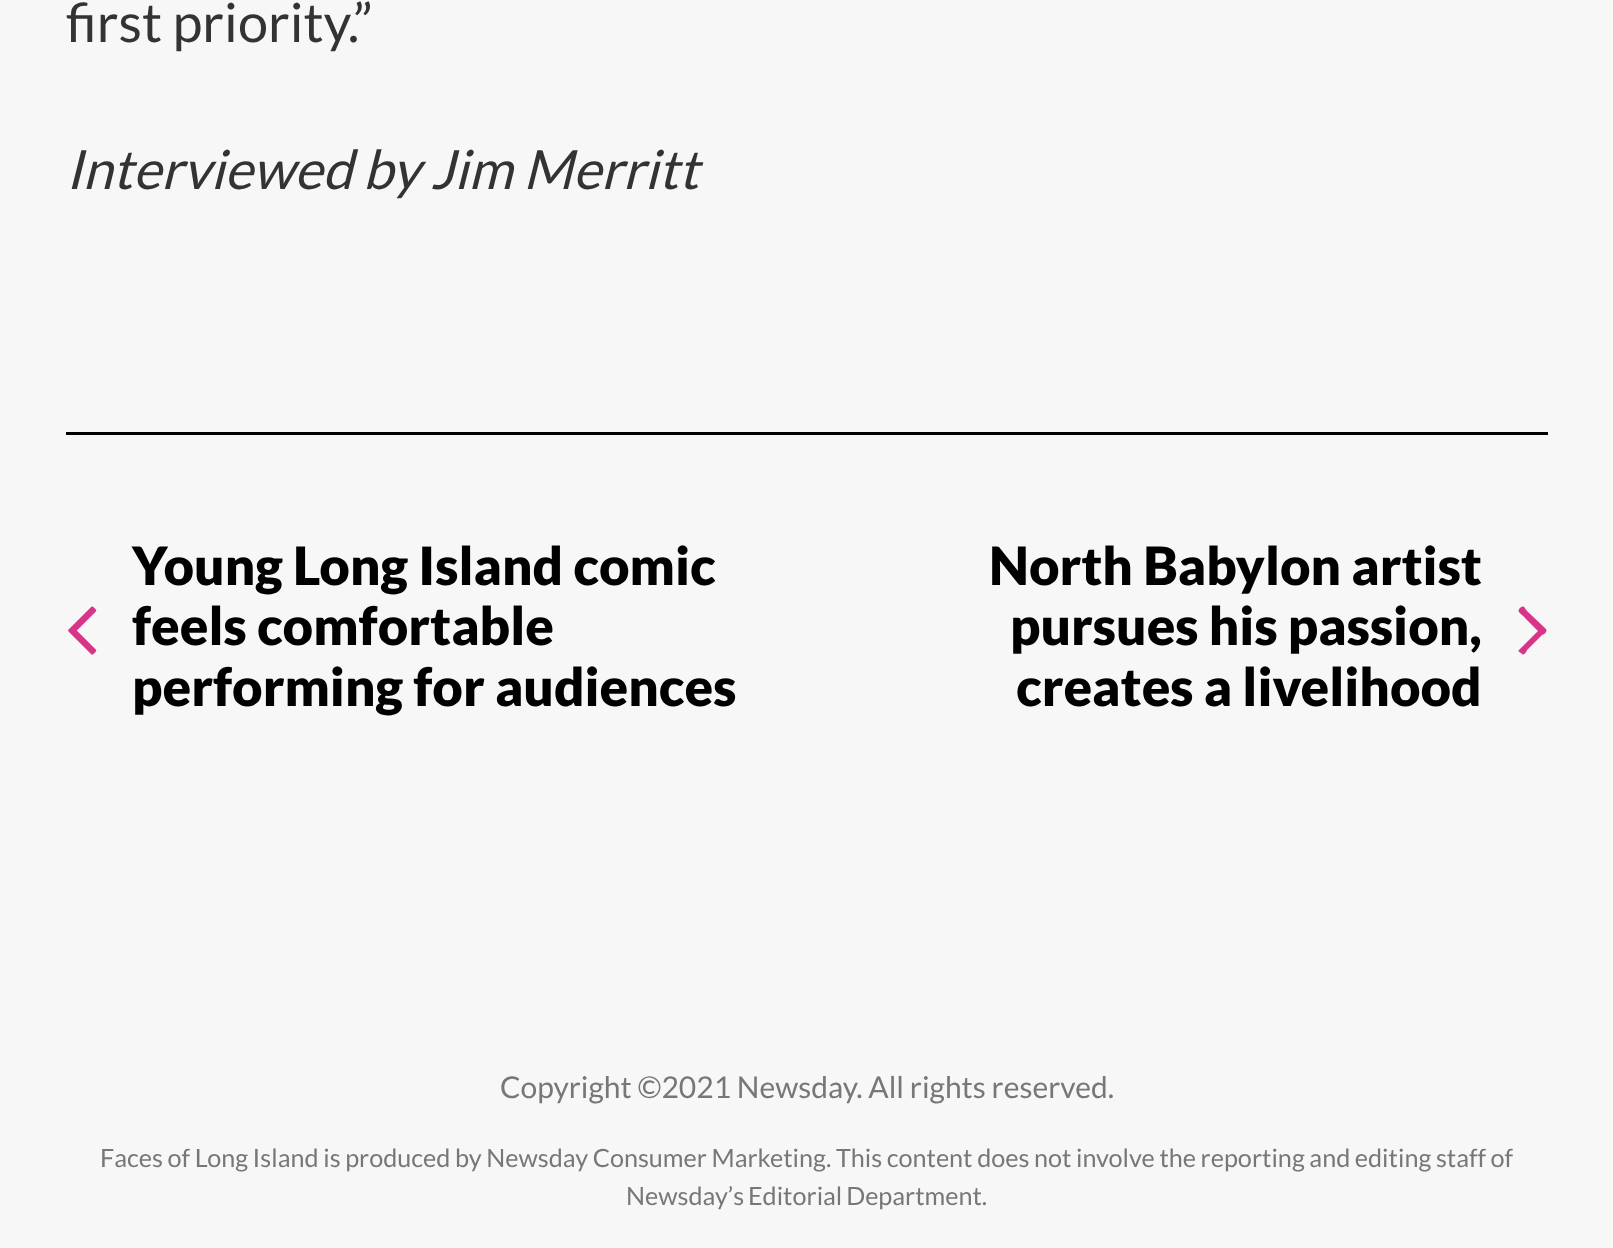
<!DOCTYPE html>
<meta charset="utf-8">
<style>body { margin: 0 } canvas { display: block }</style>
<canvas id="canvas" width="1613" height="1248"></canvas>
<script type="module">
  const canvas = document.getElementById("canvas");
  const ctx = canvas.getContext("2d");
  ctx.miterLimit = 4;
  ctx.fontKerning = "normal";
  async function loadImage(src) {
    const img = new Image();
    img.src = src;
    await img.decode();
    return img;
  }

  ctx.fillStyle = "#f7f7f7";
  ctx.fillRect(0, 0, 1613, 1248);
  ctx.font = "54px Lato";
  ctx.fillStyle = "#333333";
  ctx.fillText("first priority.”", 66, 42);
  ctx.font = "italic 54px Lato";
  ctx.fillText("Interviewed by Jim Merritt", 66, 189);
  ctx.fillStyle = "#000000";
  ctx.fillRect(66, 432, 1482, 3);
  ctx.font = "900 52.75px Lato";
  ctx.fillText("Young Long Island comic", 132, 585);
  ctx.drawImage(await loadImage("img1.png"), 68, 606, 29, 49);
  ctx.fillText("feels comfortable", 132, 645);
  ctx.fillText("performing for audiences", 132, 706);
  ctx.fillText("North Babylon artist", 989, 585);
  ctx.fillText("pursues his passion,", 1010, 645);
  ctx.fillStyle = "#d73588";
  ctx.beginPath();
  ctx.moveTo(1546, 629);
  ctx.bezierCurveTo(1548, 632, 1543, 635, 1542, 635);
  ctx.lineTo(1527, 650);
  ctx.bezierCurveTo(1527, 651, 1524, 656, 1522, 654);
  ctx.bezierCurveTo(1521, 653, 1517, 651, 1519, 650);
  ctx.lineTo(1538, 631);
  ctx.lineTo(1525, 618);
  ctx.bezierCurveTo(1521, 613, 1516, 612, 1520, 608);
  ctx.bezierCurveTo(1524, 605, 1524, 607, 1527, 611);
  ctx.closePath();
  ctx.fill();
  ctx.fillStyle = "#000000";
  ctx.fillText("creates a livelihood", 1016, 706);
  ctx.font = "30px Lato";
  ctx.fillStyle = "#777777";
  ctx.fillText("Copyright ©2021 Newsday. All rights reserved.", 500, 1098);
  ctx.wordSpacing = "-0.25px";
  ctx.font = "25.2px Lato";
  ctx.fillText("Faces of Long Island is produced by Newsday Consumer Marketing. This content does not involve the reporting and editing staff of", 100, 1167);
  ctx.wordSpacing = "-1px";
  ctx.fillText("Newsday’s Editorial Department.", 626, 1205);
</script>
